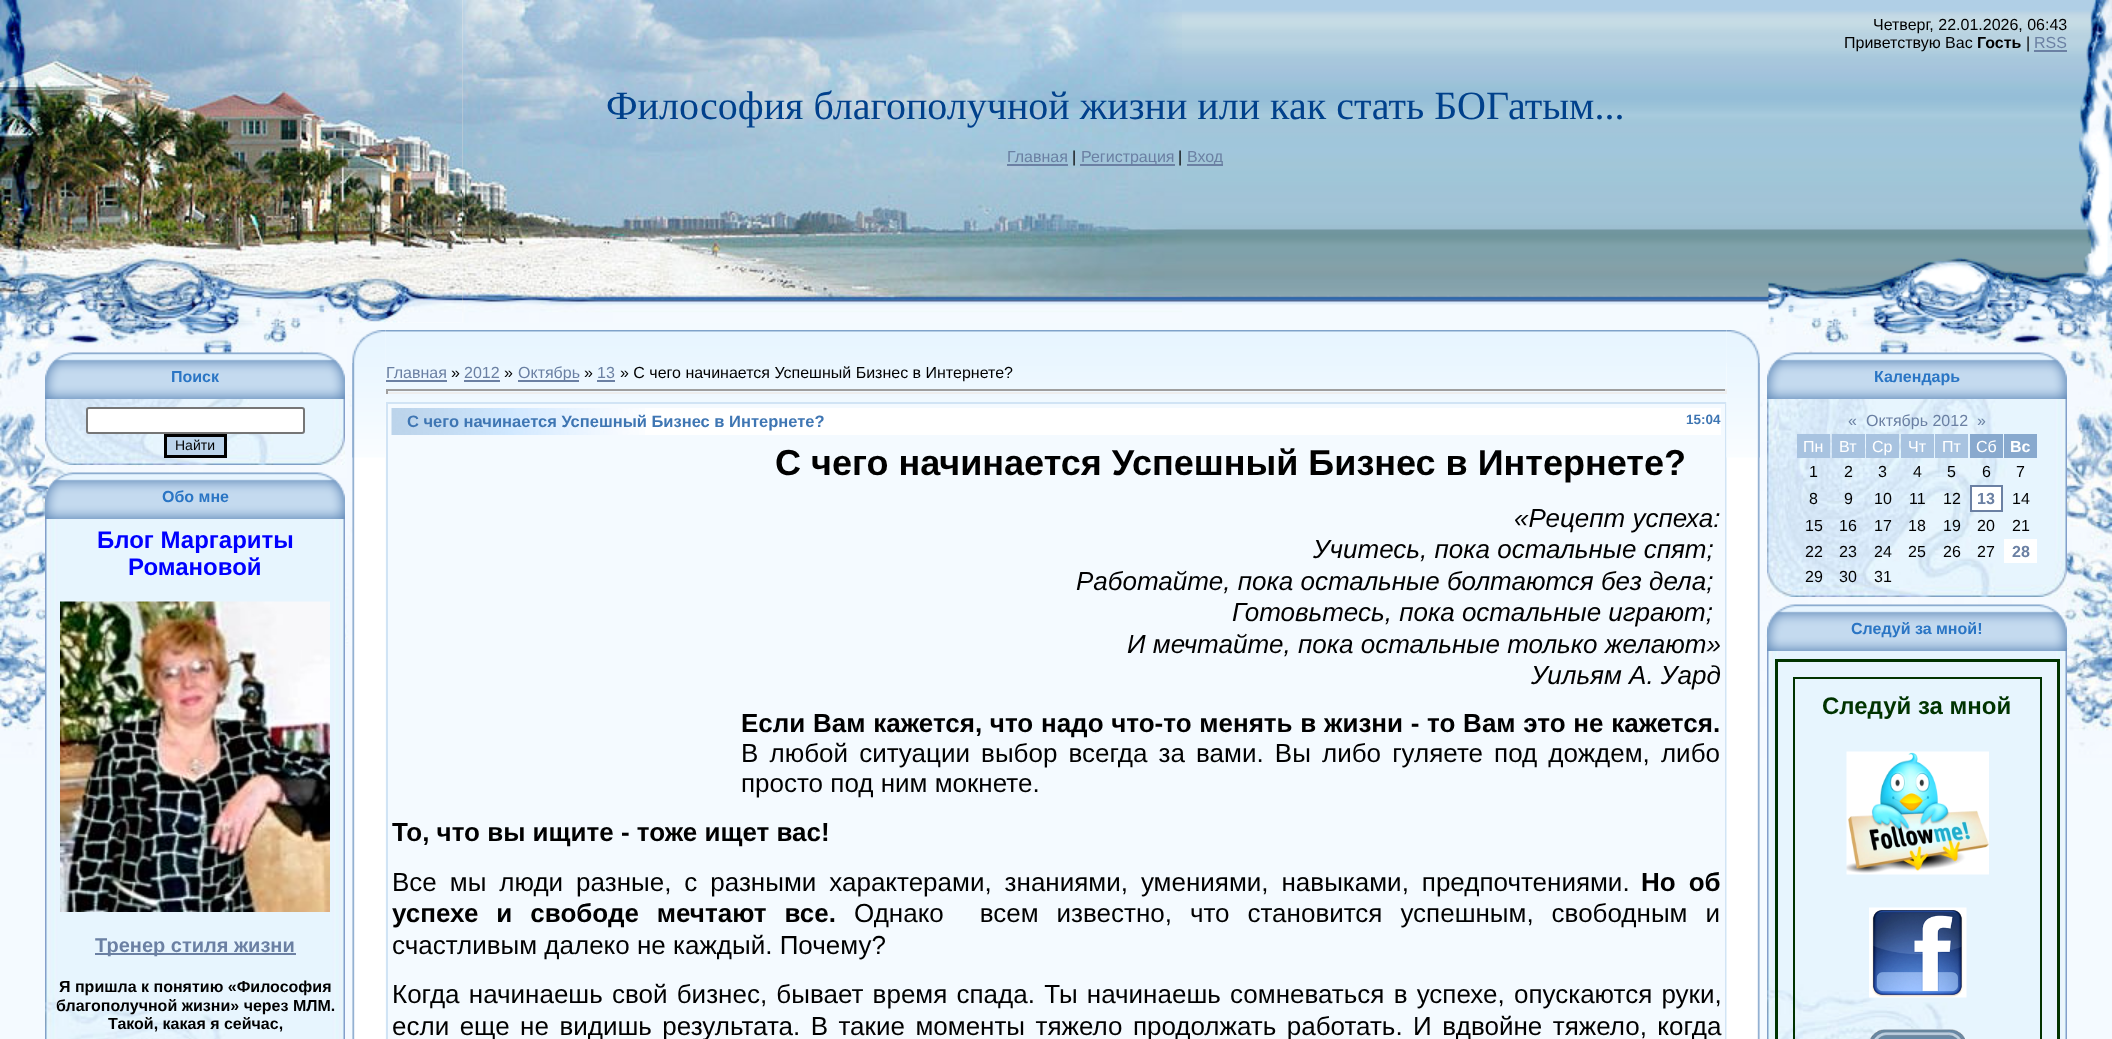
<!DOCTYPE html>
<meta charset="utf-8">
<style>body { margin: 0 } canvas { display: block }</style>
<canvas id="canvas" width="2112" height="1039"></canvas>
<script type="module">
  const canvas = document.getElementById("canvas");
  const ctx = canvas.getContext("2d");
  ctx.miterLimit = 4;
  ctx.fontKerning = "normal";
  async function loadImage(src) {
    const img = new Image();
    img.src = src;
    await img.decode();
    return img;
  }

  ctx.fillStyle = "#f4faff";
  ctx.fillRect(0, 0, 2112, 1039);
  ctx.drawImage(await loadImage("img1.png"), 1182, 0, 913, 305);
  ctx.drawImage(await loadImage("img2.png"), 0, 0, 1182, 323);
  ctx.drawImage(await loadImage("img6.png"), 0, 322, 370, 442);
  ctx.drawImage(await loadImage("img3.png"), 0, 0, 462, 323);
  ctx.drawImage(await loadImage("img4.png"), 1768, 0, 344, 323);
  ctx.font = "16px Liberation Sans";
  ctx.fillStyle = "#000000";
  ctx.fillText("Четверг, 22.01.2026, 06:43", 1873, 30);
  ctx.fillText("Приветствую Вас", 1844, 48);
  ctx.font = "bold 16px Liberation Sans";
  ctx.fillText("Гость", 1977, 48);
  ctx.font = "16px Liberation Sans";
  ctx.fillText("|", 2026, 48);
  ctx.fillStyle = "#6b80a3";
  ctx.fillText("RSS", 2034, 48);
  ctx.fillRect(2034, 50, 33, 2);
  ctx.font = "40px Liberation Serif";
  ctx.fillStyle = "#00408b";
  ctx.fillText("Философия благополучной жизни или как стать БОГатым...", 606, 119);
  ctx.font = "16px Liberation Sans";
  ctx.fillStyle = "#6b80a3";
  ctx.fillText("Главная", 1007, 162);
  ctx.fillRect(1007, 164, 61, 2);
  ctx.fillStyle = "#000000";
  ctx.fillText("|", 1072, 162);
  ctx.fillStyle = "#6b80a3";
  ctx.fillRect(1080, 164, 95, 2);
  ctx.fillText("Регистрация", 1081, 162);
  ctx.fillStyle = "#000000";
  ctx.fillText("|", 1178, 162);
  ctx.fillStyle = "#6b80a3";
  ctx.fillRect(1187, 164, 36, 2);
  ctx.fillText("Вход", 1187, 162);
  ctx.drawImage(await loadImage("img5.png"), 1743, 322, 369, 442);
  ctx.drawImage(await loadImage("img7.png"), 45, 352, 300, 47);
  ctx.font = "bold 16px Liberation Sans";
  ctx.fillStyle = "#2a75c4";
  ctx.fillText("Поиск", 171, 382);
  ctx.drawImage(await loadImage("img8.png"), 45, 399, 300, 66);
  ctx.fillStyle = "#ffffff";
  ctx.beginPath();
  ctx.roundRect(87, 408, 217, 25, 2);
  ctx.fill();
  ctx.strokeStyle = "#767676";
  ctx.lineWidth = 2;
  ctx.stroke();
  ctx.fillStyle = "#bcd4eb";
  ctx.beginPath();
  ctx.rect(165.5, 435.5, 60, 21);
  ctx.fill();
  ctx.strokeStyle = "#000000";
  ctx.lineWidth = 3;
  ctx.stroke();
  ctx.font = "14px Liberation Sans";
  ctx.fillStyle = "#000000";
  ctx.fillText("Найти", 175, 450);
  ctx.drawImage(await loadImage("img9.png"), 45, 472, 300, 47);
  ctx.font = "bold 16px Liberation Sans";
  ctx.fillStyle = "#2a75c4";
  ctx.fillText("Обо мне", 162, 502);
  ctx.drawImage(await loadImage("img10.png"), 45, 519, 300, 520);
  ctx.font = "bold 24px Liberation Sans";
  ctx.fillStyle = "#0000ff";
  ctx.fillText("Блог Маргариты", 97, 548);
  ctx.fillText("Романовой", 128, 575);
  ctx.drawImage(await loadImage("img11.png"), 60, 601, 270, 311);
  ctx.fillStyle = "#6b80a3";
  ctx.fillRect(95, 953, 201, 2);
  ctx.font = "bold 20px Liberation Sans";
  ctx.fillText("Тренер стиля жизни", 95, 952);
  ctx.font = "bold 16px Liberation Sans";
  ctx.fillStyle = "#000000";
  ctx.fillText("Я пришла к понятию «Философия", 59, 992);
  ctx.fillText("благополучной жизни» через МЛМ.", 56, 1011);
  ctx.fillText("Такой, какая я сейчас,", 108, 1029);
  ctx.drawImage(await loadImage("img13.png"), 385, 330, 1342, 33);
  ctx.drawImage(await loadImage("img12.png"), 352, 330, 34, 33);
  ctx.drawImage(await loadImage("img14.png"), 1726, 330, 34, 33);
  ctx.drawImage(await loadImage("img15.png"), 352, 363, 34, 676);
  ctx.drawImage(await loadImage("img17.png"), 385, 363, 1342, 94);
  ctx.drawImage(await loadImage("img16.png"), 352, 363, 34, 95);
  ctx.font = "16px Liberation Sans";
  ctx.fillStyle = "#6b80a3";
  ctx.fillText("Главная", 386, 378);
  ctx.fillRect(386, 380, 61, 2);
  ctx.fillStyle = "#000000";
  ctx.fillText("»", 451, 378);
  ctx.fillStyle = "#6b80a3";
  ctx.fillText("2012", 464, 378);
  ctx.fillRect(464, 380, 36, 2);
  ctx.fillStyle = "#000000";
  ctx.fillText("»", 504, 378);
  ctx.fillStyle = "#6b80a3";
  ctx.fillRect(518, 380, 61, 2);
  ctx.fillText("Октябрь", 518, 378);
  ctx.fillStyle = "#000000";
  ctx.fillText("»", 584, 378);
  ctx.fillStyle = "#6b80a3";
  ctx.fillText("13", 597, 378);
  ctx.fillRect(597, 380, 18, 2);
  ctx.fillStyle = "#000000";
  ctx.fillText("» С чего начинается Успешный Бизнес в Интернете?", 620, 378);
  ctx.fillStyle = "#f4faff";
  ctx.fillRect(388, 404, 1337, 53);
  ctx.strokeStyle = "#d1e4f5";
  ctx.lineWidth = 2;
  ctx.strokeRect(387, 403, 1339, 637);
  ctx.drawImage(await loadImage("img19.png"), 1726, 363, 34, 676);
  ctx.drawImage(await loadImage("img20.png"), 1726, 363, 34, 95);
  ctx.fillStyle = "#9f9f9f";
  ctx.fillRect(386, 389, 1341, 2);
  ctx.fillStyle = "#eeeeee";
  ctx.fillRect(1725, 389, 2, 5);
  ctx.fillRect(386, 392, 1341, 2);
  ctx.fillStyle = "#9f9f9f";
  ctx.fillRect(386, 389, 2, 5);
  ctx.fillStyle = "#ffffff";
  ctx.fillRect(645, 408, 1076, 27);
  ctx.drawImage(await loadImage("img18.png"), 391, 408, 254, 27);
  ctx.font = "bold 16.5px Liberation Sans";
  ctx.fillStyle = "#3f76b3";
  ctx.fillText("С чего начинается Успешный Бизнес в Интернете?", 407, 427);
  ctx.font = "bold 13.5px Liberation Sans";
  ctx.fillText("15:04", 1686, 424);
  ctx.font = "bold 36px Liberation Sans";
  ctx.fillStyle = "#000000";
  ctx.fillText("С чего начинается Успешный Бизнес в Интернете?", 775, 475);
  ctx.font = "italic 26px Liberation Sans";
  ctx.fillText("«Рецепт успеха:", 1514, 527);
  ctx.fillText("Учитесь, пока остальные спят;", 1313, 558);
  ctx.fillText("Работайте, пока остальные болтаются без дела;", 1076, 590);
  ctx.fillText("Готовьтесь, пока остальные играют;", 1232, 621);
  ctx.fillText("И мечтайте, пока остальные только желают»", 1127, 653);
  ctx.fillText("Уильям А. Уард", 1531, 684);
  ctx.wordSpacing = "0.5px";
  ctx.font = "bold 26px Liberation Sans";
  ctx.fillText("Если Вам кажется, что надо что-то менять в жизни - то Вам это не кажется.", 741, 732);
  ctx.wordSpacing = "3.9px";
  ctx.font = "26px Liberation Sans";
  ctx.fillText("В любой ситуации выбор всегда за вами. Вы либо гуляете под дождем, либо", 741, 762);
  ctx.wordSpacing = "0px";
  ctx.fillText("просто под ним мокнете.", 741, 792);
  ctx.font = "bold 26px Liberation Sans";
  ctx.fillText("То, что вы ищите - тоже ищет вас!", 392, 841);
  ctx.wordSpacing = "5.75px";
  ctx.font = "26px Liberation Sans";
  ctx.fillText("Все мы люди разные, с разными характерами, знаниями, умениями, навыками, предпочтениями.", 392, 891);
  ctx.font = "bold 26px Liberation Sans";
  ctx.fillText("Но об", 1641, 891);
  ctx.wordSpacing = "10.75px";
  ctx.fillText("успехе и свободе мечтают все.", 392, 922);
  ctx.font = "26px Liberation Sans";
  ctx.fillText("Однако  всем известно, что становится успешным, свободным и", 854, 922);
  ctx.wordSpacing = "0px";
  ctx.fillText("счастливым далеко не каждый. Почему?", 392, 954);
  ctx.wordSpacing = "2px";
  ctx.fillText("Когда начинаешь свой бизнес, бывает время спада. Ты начинаешь сомневаться в успехе, опускаются руки,", 392, 1003);
  ctx.wordSpacing = "3.25px";
  ctx.fillText("если еще не видишь результата. В такие моменты тяжело продолжать работать. И вдвойне тяжело, когда", 392, 1035);
  ctx.drawImage(await loadImage("img21.png"), 1767, 352, 300, 47);
  ctx.wordSpacing = "0px";
  ctx.font = "bold 16px Liberation Sans";
  ctx.fillStyle = "#2a75c4";
  ctx.fillText("Календарь", 1874, 382);
  ctx.drawImage(await loadImage("img22.png"), 1767, 399, 300, 198);
  ctx.font = "16px Liberation Sans";
  ctx.fillStyle = "#6b80a3";
  ctx.fillText("«", 1848, 426);
  ctx.fillText("Октябрь 2012", 1866, 426);
  ctx.fillText("»", 1977, 426);
  ctx.fillStyle = "#a8c3e0";
  ctx.fillRect(1797, 434, 33, 24);
  ctx.fillStyle = "#ffffff";
  ctx.fillText("Пн", 1803, 452);
  ctx.fillStyle = "#a8c3e0";
  ctx.fillRect(1832, 434, 33, 24);
  ctx.fillStyle = "#ffffff";
  ctx.fillText("Вт", 1839, 452);
  ctx.fillStyle = "#a8c3e0";
  ctx.fillRect(1866, 434, 33, 24);
  ctx.fillStyle = "#ffffff";
  ctx.fillText("Ср", 1872, 452);
  ctx.fillStyle = "#a8c3e0";
  ctx.fillRect(1901, 434, 33, 24);
  ctx.fillStyle = "#ffffff";
  ctx.fillText("Чт", 1908, 452);
  ctx.fillStyle = "#a8c3e0";
  ctx.fillRect(1935, 434, 33, 24);
  ctx.fillStyle = "#ffffff";
  ctx.fillText("Пт", 1942, 452);
  ctx.fillStyle = "#88a9ce";
  ctx.fillRect(1970, 434, 33, 24);
  ctx.fillStyle = "#ffffff";
  ctx.fillText("Сб", 1976, 452);
  ctx.fillStyle = "#88a9ce";
  ctx.fillRect(2004, 434, 33, 24);
  ctx.font = "bold 16px Liberation Sans";
  ctx.fillStyle = "#ffffff";
  ctx.fillText("Вс", 2010, 452);
  ctx.font = "16px Liberation Sans";
  ctx.fillStyle = "#000000";
  ctx.fillText("1", 1809, 477);
  ctx.fillText("2", 1844, 477);
  ctx.fillText("3", 1878, 477);
  ctx.fillText("4", 1913, 477);
  ctx.fillText("5", 1947, 477);
  ctx.fillText("6", 1982, 477);
  ctx.fillText("7", 2016, 477);
  ctx.fillText("8", 1809, 504);
  ctx.fillText("9", 1844, 504);
  ctx.fillText("10", 1874, 504);
  ctx.fillText("11", 1909, 504);
  ctx.fillText("12", 1943, 504);
  ctx.fillStyle = "#ffffff";
  ctx.beginPath();
  ctx.rect(1971, 486, 31, 25);
  ctx.fill();
  ctx.strokeStyle = "#6b80a3";
  ctx.stroke();
  ctx.font = "bold 16px Liberation Sans";
  ctx.fillStyle = "#6b80a3";
  ctx.fillText("13", 1977, 504);
  ctx.font = "16px Liberation Sans";
  ctx.fillStyle = "#000000";
  ctx.fillText("14", 2012, 504);
  ctx.fillText("15", 1805, 531);
  ctx.fillText("16", 1839, 531);
  ctx.fillText("17", 1874, 531);
  ctx.fillText("18", 1908, 531);
  ctx.fillText("19", 1943, 531);
  ctx.fillText("20", 1977, 531);
  ctx.fillText("21", 2012, 531);
  ctx.fillText("22", 1805, 557);
  ctx.fillText("23", 1839, 557);
  ctx.fillText("24", 1874, 557);
  ctx.fillText("25", 1908, 557);
  ctx.fillText("26", 1943, 557);
  ctx.fillText("27", 1977, 557);
  ctx.fillStyle = "#ffffff";
  ctx.fillRect(2004, 539, 33, 24);
  ctx.font = "bold 16px Liberation Sans";
  ctx.fillStyle = "#6b80a3";
  ctx.fillText("28", 2012, 557);
  ctx.font = "16px Liberation Sans";
  ctx.fillStyle = "#000000";
  ctx.fillText("29", 1805, 582);
  ctx.fillText("30", 1839, 582);
  ctx.fillText("31", 1874, 582);
  ctx.drawImage(await loadImage("img23.png"), 1767, 604, 300, 47);
  ctx.font = "bold 16px Liberation Sans";
  ctx.fillStyle = "#2a75c4";
  ctx.fillText("Следуй за мной!", 1851, 634);
  ctx.drawImage(await loadImage("img24.png"), 1767, 651, 300, 388);
  ctx.strokeStyle = "#003300";
  ctx.lineWidth = 3;
  ctx.strokeRect(1776.5, 660.5, 282, 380);
  ctx.lineWidth = 2;
  ctx.strokeRect(1794, 678, 247, 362);
  ctx.font = "bold 24px Liberation Sans";
  ctx.fillStyle = "#003300";
  ctx.fillText("Следуй за мной", 1822, 714);
  ctx.drawImage(await loadImage("img25.png"), 1846, 751, 143, 124);
  ctx.drawImage(await loadImage("img26.png"), 1869, 907, 98, 91);
  ctx.drawImage(await loadImage("img27.png"), 1870, 1029, 96, 10);
</script>
